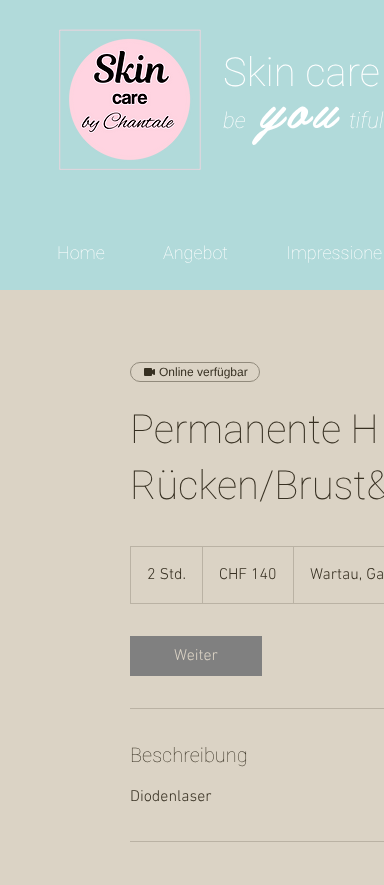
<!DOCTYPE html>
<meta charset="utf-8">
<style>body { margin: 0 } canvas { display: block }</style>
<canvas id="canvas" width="384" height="885"></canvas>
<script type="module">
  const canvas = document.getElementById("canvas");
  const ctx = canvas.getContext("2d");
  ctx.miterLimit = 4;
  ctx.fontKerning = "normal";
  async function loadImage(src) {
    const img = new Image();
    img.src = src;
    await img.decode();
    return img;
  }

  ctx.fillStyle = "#b1dada";
  ctx.fillRect(0, 0, 384, 885);
  ctx.drawImage(await loadImage("img1.png"), 59, 29, 142, 141);
  ctx.font = "100 40px Roboto";
  ctx.fillStyle = "#ffffff";
  ctx.fillText("Skin care", 223, 86);
  ctx.font = "italic 100 22px Roboto";
  ctx.fillText("be", 223, 128);
  ctx.letterSpacing = "5px";
  ctx.font = "italic 50px 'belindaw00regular'";
  ctx.fillText("you", 258, 128);
  ctx.letterSpacing = "0px";
  ctx.font = "italic 100 22px Roboto";
  ctx.fillText("tiful", 349, 128);
  ctx.font = "100 18px Roboto";
  ctx.fillText("Home", 57, 259);
  ctx.fillText("Angebot", 163, 259);
  ctx.fillText("Impressione", 286, 259);
  ctx.fillStyle = "#dbd3c5";
  ctx.fillRect(0, 290, 384, 595);
  ctx.beginPath();
  ctx.roundRect(130.5, 362.5, 129, 19, 9.5);
  ctx.strokeStyle = "#918a7c";
  ctx.stroke();
  ctx.drawImage(await loadImage("img2.png"), 144, 368, 11, 8);
  ctx.font = "12px Liberation Sans";
  ctx.fillStyle = "#373022";
  ctx.fillText("Online verfügbar", 159, 376);
  ctx.font = "100 40px Roboto";
  ctx.fillText("Permanente H", 130, 443);
  ctx.fillText("Rücken/Brust&", 130, 499);
  ctx.strokeStyle = "#bab2a4";
  ctx.strokeRect(130.5, 546.5, 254, 57);
  ctx.font = "300 16px 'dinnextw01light'";
  ctx.fillText("2 Std.", 147, 579);
  ctx.fillStyle = "#bab2a4";
  ctx.beginPath();
  ctx.moveTo(202, 603);
  ctx.lineTo(202, 546);
  ctx.lineTo(203, 547);
  ctx.lineTo(203, 603);
  ctx.closePath();
  ctx.fill();
  ctx.fillStyle = "#373022";
  ctx.fillText("CHF 140", 219, 579);
  ctx.fillStyle = "#bab2a4";
  ctx.beginPath();
  ctx.moveTo(293, 603);
  ctx.lineTo(293, 546);
  ctx.lineTo(294, 547);
  ctx.lineTo(294, 603);
  ctx.closePath();
  ctx.fill();
  ctx.fillStyle = "#373022";
  ctx.fillText("Wartau, Ga", 310, 579);
  ctx.fillStyle = "#808080";
  ctx.fillRect(130, 636, 132, 40);
  ctx.fillStyle = "#dbd3c5";
  ctx.fillText("Weiter", 174, 660);
  ctx.fillStyle = "#bab2a4";
  ctx.fillRect(130, 708, 254, 1);
  ctx.font = "100 20px Roboto";
  ctx.fillStyle = "#373022";
  ctx.fillText("Beschreibung", 130, 762);
  ctx.font = "300 16px 'dinnextw01light'";
  ctx.fillText("Diodenlaser", 130, 801);
  ctx.fillStyle = "#bab2a4";
  ctx.fillRect(130, 841, 254, 1);
</script>
